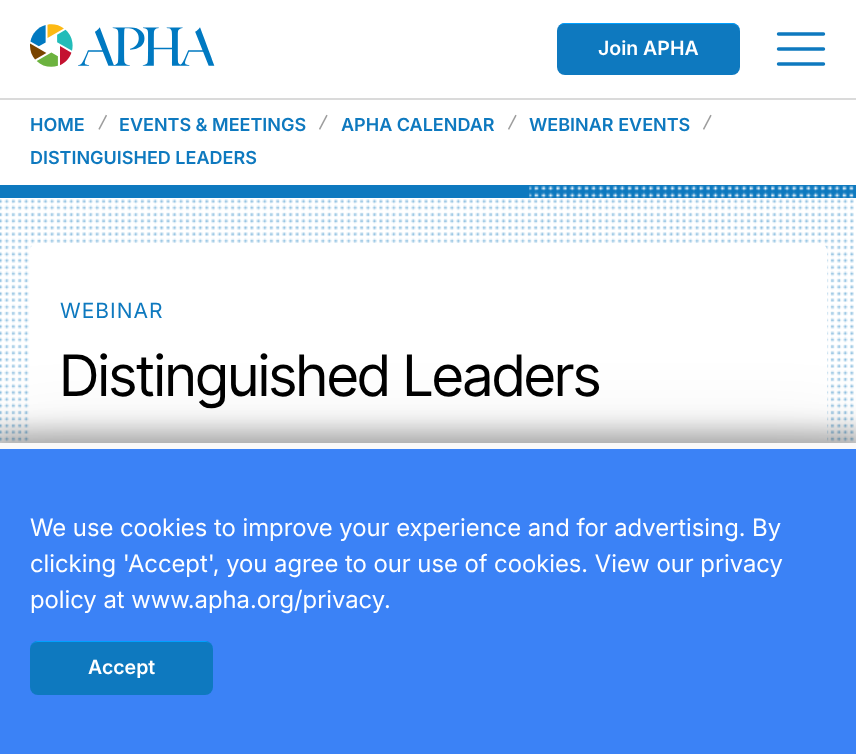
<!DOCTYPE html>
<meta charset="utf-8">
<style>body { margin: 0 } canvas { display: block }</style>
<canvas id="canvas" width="856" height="754"></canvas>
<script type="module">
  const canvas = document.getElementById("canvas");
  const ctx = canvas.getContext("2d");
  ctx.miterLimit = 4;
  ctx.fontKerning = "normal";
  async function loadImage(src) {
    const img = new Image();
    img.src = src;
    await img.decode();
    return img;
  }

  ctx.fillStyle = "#ffffff";
  ctx.fillRect(0, 0, 856, 754);
  ctx.drawImage(await loadImage("img1.png"), 30, 24, 185, 43);
  ctx.fillStyle = "#0e79bf";
  ctx.beginPath();
  ctx.roundRect(557, 23, 183, 52, 8);
  ctx.fill();
  ctx.fillStyle = "#00a0ff";
  ctx.beginPath();
  ctx.moveTo(564, 24);
  ctx.lineTo(732, 24);
  ctx.bezierCurveTo(736, 24, 740, 27, 740, 32);
  ctx.lineTo(740, 31);
  ctx.bezierCurveTo(740, 27, 736, 23, 732, 23);
  ctx.lineTo(565, 23);
  ctx.bezierCurveTo(563, 23, 560, 24, 559, 26);
  ctx.bezierCurveTo(560, 25, 562, 24, 564, 24);
  ctx.closePath();
  ctx.fill();
  ctx.font = "600 19.5px Inter";
  ctx.fillStyle = "#ffffff";
  ctx.fillText("Join APHA", 598, 55);
  ctx.beginPath();
  ctx.moveTo(778.5, 34);
  ctx.lineTo(823.5, 34);
  ctx.moveTo(778.5, 49);
  ctx.lineTo(823.5, 49);
  ctx.moveTo(778.5, 64);
  ctx.lineTo(823.5, 64);
  ctx.strokeStyle = "#0e79bf";
  ctx.lineWidth = 3.4;
  ctx.lineCap = "round";
  ctx.lineJoin = "round";
  ctx.stroke();
  ctx.fillStyle = "#dadada";
  ctx.fillRect(0, 98, 856, 2);
  ctx.font = "600 18px Inter";
  ctx.fillStyle = "#0e79bf";
  ctx.fillText("HOME", 30, 131);
  ctx.drawImage(await loadImage("img2.png"), 98, 114, 9, 16);
  ctx.fillText("EVENTS & MEETINGS", 119, 131);
  ctx.drawImage(await loadImage("img3.png"), 319, 114, 9, 16);
  ctx.fillText("APHA CALENDAR", 341, 131);
  ctx.drawImage(await loadImage("img4.png"), 508, 114, 9, 16);
  ctx.fillText("WEBINAR EVENTS", 529, 131);
  ctx.drawImage(await loadImage("img3.png"), 703, 114, 9, 16);
  ctx.fillText("DISTINGUISHED LEADERS", 30, 164);
  ctx.fillRect(0, 185, 856, 13);
  ctx.drawImage(await loadImage("img5.png"), 529, 185, 327, 13);
  ctx.drawImage(await loadImage("img6.png"), 0, 199, 854, 243);
  ctx.fillStyle = "#ffffff";
  ctx.beginPath();
  ctx.moveTo(38, 243);
  ctx.lineTo(819, 243);
  ctx.bezierCurveTo(823.5, 243, 827, 246.5, 827, 251);
  ctx.lineTo(827, 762);
  ctx.lineTo(30, 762);
  ctx.lineTo(30, 251);
  ctx.bezierCurveTo(30, 246.5, 33.5, 243, 38, 243);
  ctx.closePath();
  ctx.fill();
  ctx.letterSpacing = "1px";
  ctx.font = "21px Inter";
  ctx.fillStyle = "#0e79bf";
  ctx.fillText("WEBINAR", 60, 318);
  ctx.letterSpacing = "0px";
  ctx.font = "57px Inter Tight";
  ctx.fillStyle = "#000000";
  ctx.fillText("Distinguished Leaders", 60, 396);
  ctx.fillStyle = "rgba(0, 0, 0, 0.1)";
  ctx.filter = "blur(42px)";
  ctx.beginPath();
  ctx.rect(0, 443, 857, 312);
  ctx.fill();
  ctx.filter = "none";
  ctx.fillStyle = "rgba(0, 0, 0, 0.3)";
  ctx.filter = "blur(12px)";
  ctx.beginPath();
  ctx.rect(-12, 431, 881, 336);
  ctx.fill();
  ctx.filter = "none";
  ctx.fillStyle = "#3b82f6";
  ctx.fillRect(0, 449, 856, 305);
  ctx.fillStyle = "#faf9f9";
  ctx.fillRect(0, 443, 856, 6);
  ctx.font = "24px 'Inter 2'";
  ctx.fillStyle = "#ffffff";
  ctx.fillText("We use cookies to improve your experience and for advertising. By", 30, 536);
  ctx.fillText("clicking 'Accept', you agree to our use of cookies. View our privacy", 30, 572);
  ctx.fillText("policy at www.apha.org/privacy.", 30, 608);
  ctx.fillStyle = "#0e79bf";
  ctx.beginPath();
  ctx.roundRect(30, 641, 183, 54, 8);
  ctx.fill();
  ctx.fillStyle = "#00a0ff";
  ctx.beginPath();
  ctx.moveTo(38, 642);
  ctx.lineTo(206, 642);
  ctx.bezierCurveTo(210, 642, 213, 645, 213, 650);
  ctx.lineTo(213, 649);
  ctx.bezierCurveTo(213, 645, 209, 641, 205, 641);
  ctx.lineTo(38, 641);
  ctx.bezierCurveTo(34, 641, 30, 645, 30, 649);
  ctx.lineTo(30, 650);
  ctx.bezierCurveTo(30, 645, 33, 642, 38, 642);
  ctx.closePath();
  ctx.fill();
  ctx.font = "600 19.5px Inter";
  ctx.fillStyle = "#ffffff";
  ctx.fillText("Accept", 88, 674);
</script>
